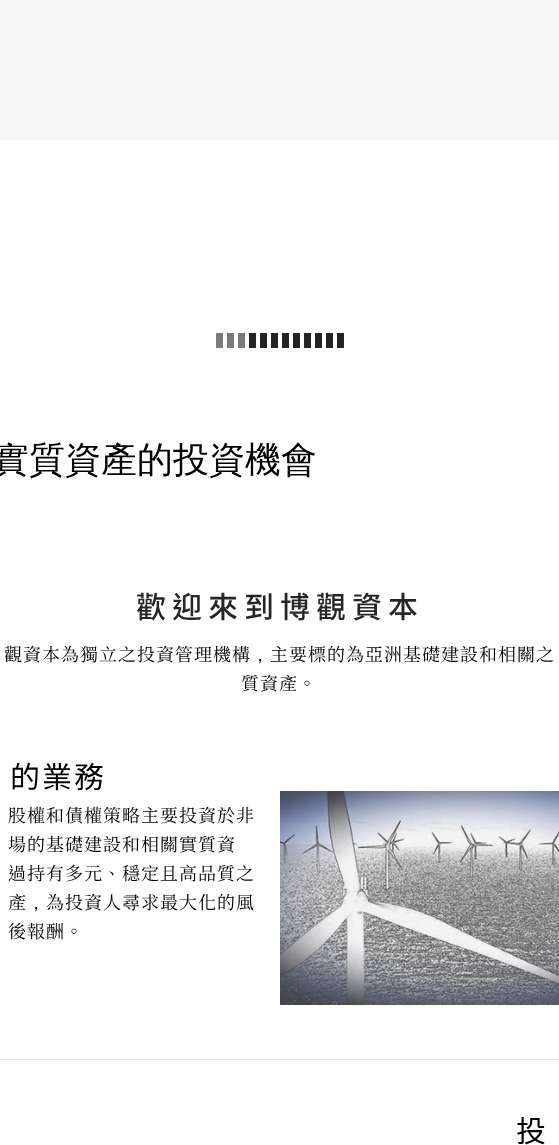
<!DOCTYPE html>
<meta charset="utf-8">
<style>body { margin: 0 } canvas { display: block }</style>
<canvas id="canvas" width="559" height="1145"></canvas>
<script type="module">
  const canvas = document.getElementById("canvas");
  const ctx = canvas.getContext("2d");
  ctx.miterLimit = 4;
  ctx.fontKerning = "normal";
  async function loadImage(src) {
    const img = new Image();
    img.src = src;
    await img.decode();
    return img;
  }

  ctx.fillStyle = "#f6f6f6";
  ctx.fillRect(0, 0, 559, 1145);
  ctx.fillStyle = "#ffffff";
  ctx.fillRect(0, 140, 559, 1005);
  ctx.drawImage(await loadImage("img1.png"), 216, 333, 128, 15);
  ctx.font = "500 36px WenQuanYi Zen Hei";
  ctx.fillStyle = "#000000";
  ctx.fillText("實質資產的投資機會", -7, 472);
  ctx.letterSpacing = "6px";
  ctx.font = "500 30px Noto Sans TC";
  ctx.fillStyle = "#262626";
  ctx.fillText("歡迎來到博觀資本", 136, 618);
  ctx.letterSpacing = "1px";
  ctx.font = "18px Noto Serif TC";
  ctx.fillStyle = "#000000";
  ctx.fillText("觀資本為獨立之投資管理機構", 4, 661);
  ctx.font = "500 18px WenQuanYi Zen Hei";
  ctx.fillText("，", 251, 661);
  ctx.font = "18px Noto Serif TC";
  ctx.fillText("主要標的為亞洲基礎建設和相關之", 270, 661);
  ctx.fillText("質資產。", 241, 690);
  ctx.letterSpacing = "2px";
  ctx.font = "30px Noto Sans TC";
  ctx.fillText("的業務", 10, 788);
  ctx.letterSpacing = "1px";
  ctx.font = "18px Noto Serif TC";
  ctx.fillText("股權和債權策略主要投資於非", 8, 822);
  ctx.fillText("場的基礎建設和相關實質資", 8, 851);
  ctx.fillText("過持有多元、穩定且高品質之", 8, 880);
  ctx.fillText("產", 8, 909);
  ctx.font = "500 18px WenQuanYi Zen Hei";
  ctx.fillText("，", 27, 909);
  ctx.font = "18px Noto Serif TC";
  ctx.fillText("為投資人尋求最大化的風", 46, 909);
  ctx.fillText("後報酬。", 8, 938);
  ctx.fillStyle = "#e1e1e1";
  ctx.fillRect(280, 791, 279, 214);
  ctx.drawImage(await loadImage("img2.png"), 280, 791, 279, 214);
  ctx.fillStyle = "#e6e6e6";
  ctx.fillRect(0, 1059, 559, 1);
  ctx.letterSpacing = "2px";
  ctx.font = "30px Noto Sans TC";
  ctx.fillStyle = "#000000";
  ctx.fillText("投", 516, 1142);
</script>
